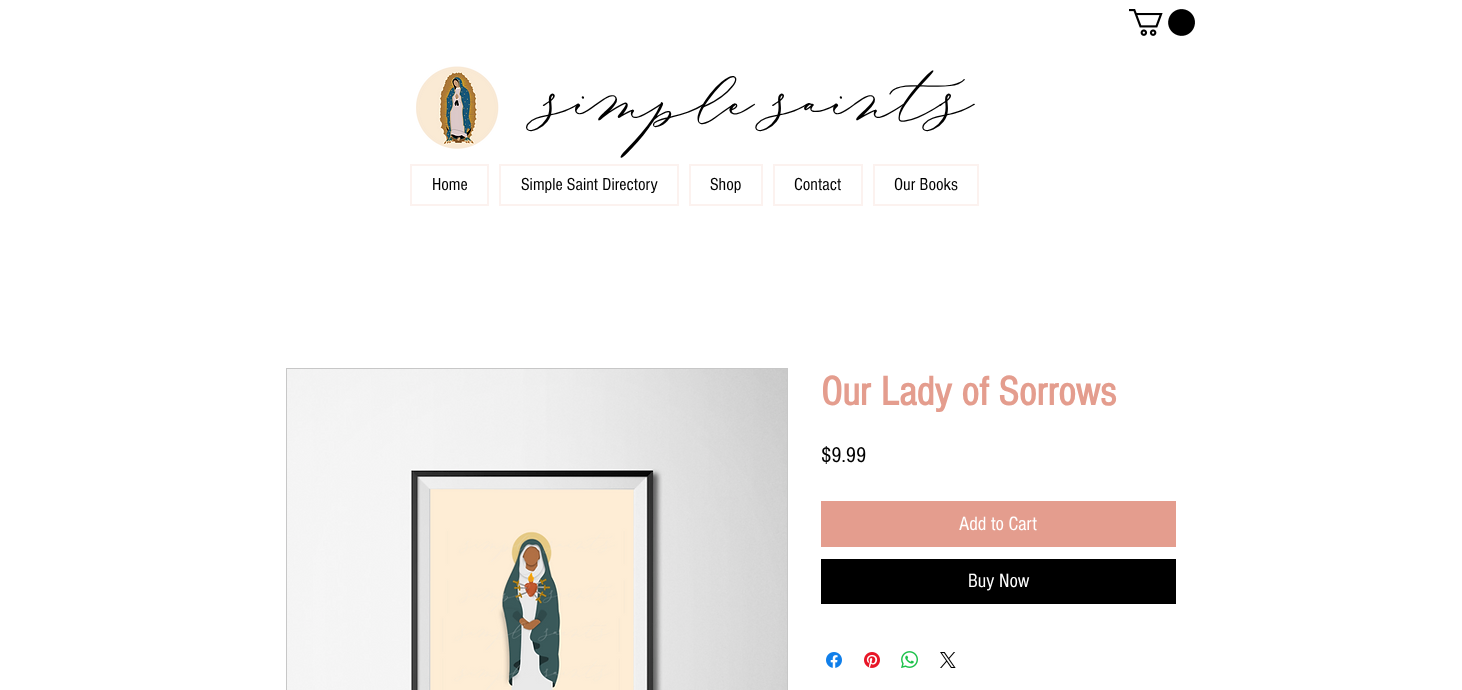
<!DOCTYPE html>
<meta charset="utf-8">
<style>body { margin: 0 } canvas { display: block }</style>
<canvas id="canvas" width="1462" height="690"></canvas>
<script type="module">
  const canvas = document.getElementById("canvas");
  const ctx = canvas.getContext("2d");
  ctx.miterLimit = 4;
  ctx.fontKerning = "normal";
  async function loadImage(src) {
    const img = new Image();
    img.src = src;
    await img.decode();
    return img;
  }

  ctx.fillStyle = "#ffffff";
  ctx.fillRect(0, 0, 1462, 690);
  ctx.drawImage(await loadImage("img1.png"), 1129, 9, 66, 27);
  ctx.drawImage(await loadImage("img2.png"), 416, 66, 83, 83);
  ctx.font = "80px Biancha";
  ctx.fillStyle = "#000000";
  ctx.fillText("simple saints", 546, 116);
  ctx.strokeStyle = "#fcf2ef";
  ctx.lineWidth = 2;
  ctx.strokeRect(411, 165, 77, 40);
  ctx.font = "18px 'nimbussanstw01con'";
  ctx.fillText("Home", 432, 190);
  ctx.strokeRect(500, 165, 178, 40);
  ctx.fillText("Simple Saint Directory", 521, 190);
  ctx.strokeRect(690, 165, 72, 40);
  ctx.fillText("Shop", 710, 190);
  ctx.strokeRect(774, 165, 88, 40);
  ctx.fillText("Contact", 794, 190);
  ctx.strokeRect(874, 165, 104, 40);
  ctx.fillText("Our Books", 894, 190);
  ctx.strokeStyle = "#c7c7c7";
  ctx.lineWidth = 1;
  ctx.strokeRect(286.5, 368.5, 501, 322);
  ctx.drawImage(await loadImage("img3.png"), 287, 369, 500, 321);
  ctx.font = "bold 42px 'nimbussanstw01con'";
  ctx.fillStyle = "#e49d8e";
  ctx.fillText("Our Lady of Sorrows", 821, 405);
  ctx.font = "22px 'nimbussanstw01con'";
  ctx.fillStyle = "#000000";
  ctx.fillText("$9.99", 821, 462);
  ctx.fillStyle = "#e49d8e";
  ctx.fillRect(821, 501, 355, 46);
  ctx.font = "20px 'nimbussanstw01con'";
  ctx.fillStyle = "#ffffff";
  ctx.fillText("Add to Cart", 959, 530);
  ctx.fillStyle = "#000000";
  ctx.fillRect(821, 559, 355, 45);
  ctx.fillStyle = "#ffffff";
  ctx.fillText("Buy Now", 968, 587);
  ctx.drawImage(await loadImage("img4.png"), 826, 652, 16, 16);
  ctx.drawImage(await loadImage("img5.png"), 864, 652, 16, 16);
  ctx.drawImage(await loadImage("img6.png"), 901, 651, 17, 17);
  ctx.drawImage(await loadImage("img7.png"), 940, 652, 16, 16);
</script>
